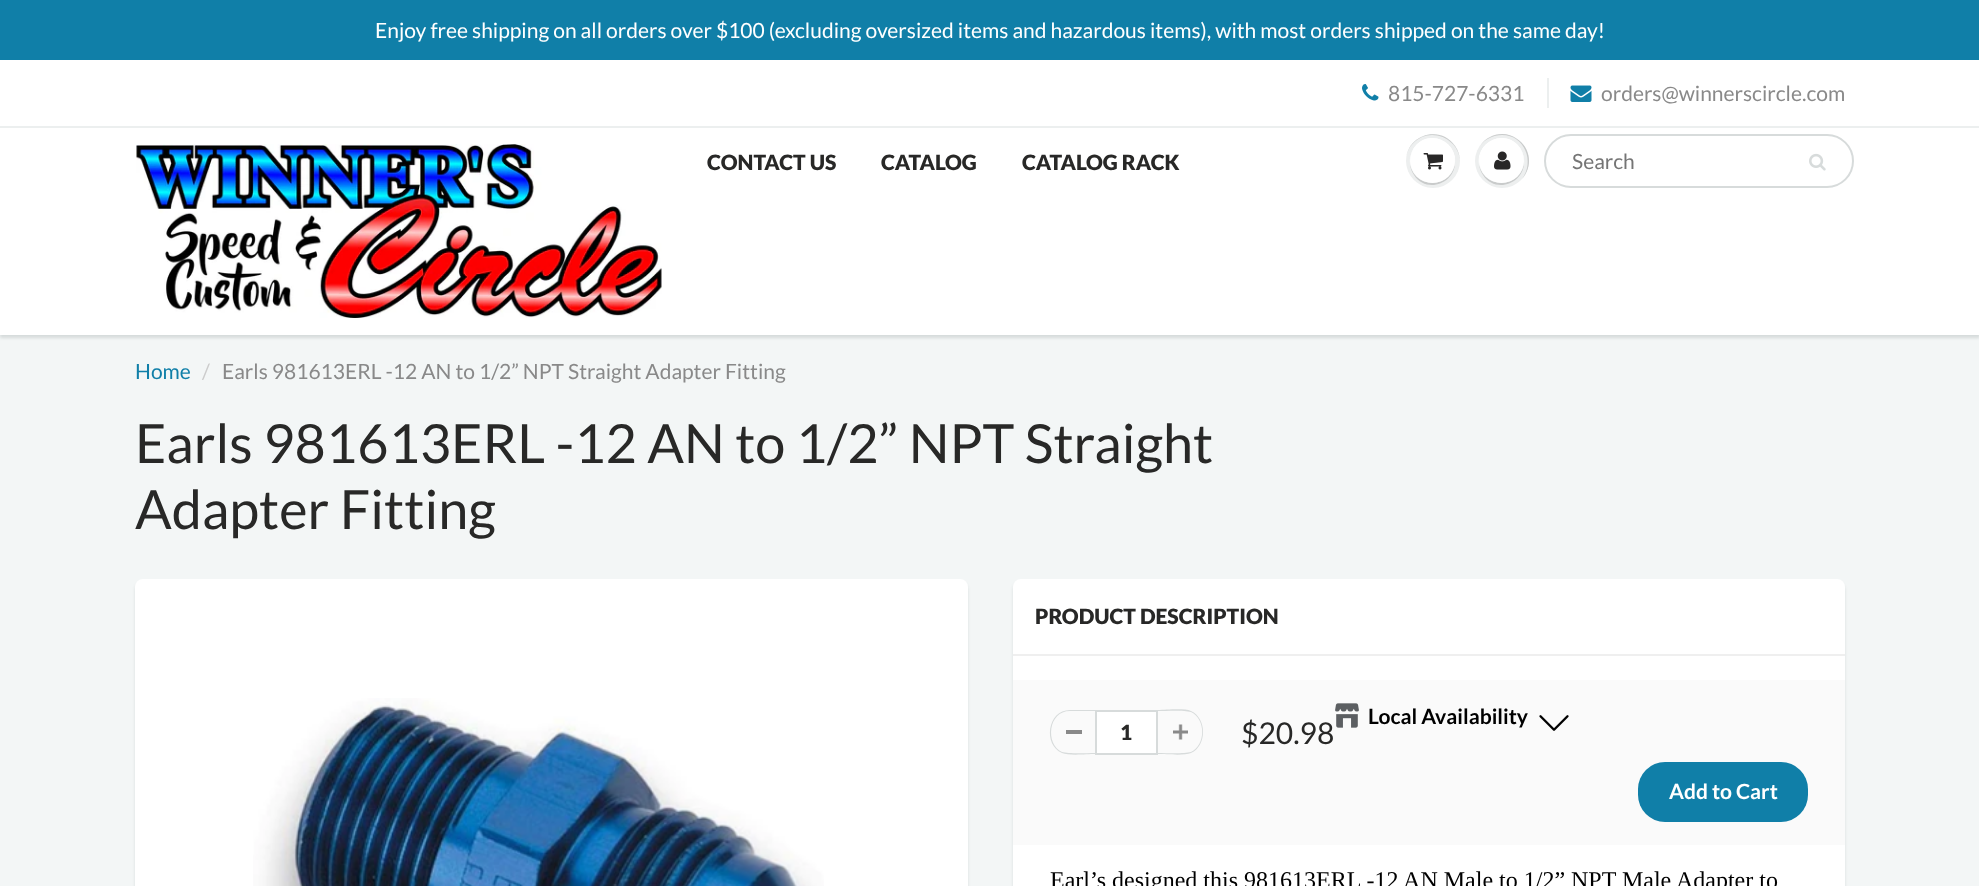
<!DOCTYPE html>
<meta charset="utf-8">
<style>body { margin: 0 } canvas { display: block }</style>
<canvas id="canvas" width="1979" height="886"></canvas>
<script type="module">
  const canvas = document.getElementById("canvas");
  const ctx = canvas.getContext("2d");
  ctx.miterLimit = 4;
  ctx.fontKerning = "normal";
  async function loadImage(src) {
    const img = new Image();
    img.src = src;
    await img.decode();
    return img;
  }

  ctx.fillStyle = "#ffffff";
  ctx.fillRect(0, 0, 1979, 886);
  ctx.fillStyle = "#107fa8";
  ctx.fillRect(0, 0, 1979, 60);
  ctx.font = "21px Lato";
  ctx.fillStyle = "#ffffff";
  ctx.fillText("Enjoy free shipping on all orders over $100 (excluding oversized items and hazardous items), with most orders shipped on the same day!", 375, 38);
  ctx.drawImage(await loadImage("img1.png"), 1362, 84, 17, 17);
  ctx.fillStyle = "#898989";
  ctx.fillText("815-727-6331", 1388, 101);
  ctx.fillStyle = "#ecefef";
  ctx.fillRect(1547, 78, 2, 30);
  ctx.drawImage(await loadImage("img2.png"), 1570, 85, 22, 17);
  ctx.fillStyle = "#898989";
  ctx.fillText("orders@winnerscircle.com", 1601, 101);
  ctx.fillStyle = "#f3f6f6";
  ctx.fillRect(0, 335, 1979, 551);
  ctx.fillStyle = "rgba(11, 25, 28, 0.12)";
  ctx.filter = "blur(1.5px)";
  ctx.beginPath();
  ctx.rect(0, 129, 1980, 209);
  ctx.fill();
  ctx.filter = "none";
  ctx.fillStyle = "#ffffff";
  ctx.fillRect(0, 128, 1979, 207);
  ctx.fillStyle = "#ecefef";
  ctx.fillRect(0, 126, 1979, 2);
  ctx.drawImage(await loadImage("img3.png"), 136, 144, 526, 174);
  ctx.font = "900 21px Lato";
  ctx.fillStyle = "#282827";
  ctx.fillText("CONTACT US", 707, 170);
  ctx.fillText("CATALOG", 881, 170);
  ctx.fillText("CATALOG RACK", 1022, 170);
  ctx.fillStyle = "#edefef";
  ctx.beginPath();
  ctx.arc(1433, 161, 27, 0, Math.PI * 2);
  ctx.fill();
  ctx.fillStyle = "#c9cbcb";
  ctx.beginPath();
  ctx.moveTo(1432, 135);
  ctx.bezierCurveTo(1447, 135, 1460, 147, 1460, 162);
  ctx.bezierCurveTo(1460, 156, 1458, 150, 1455, 146);
  ctx.bezierCurveTo(1440, 124, 1406, 135, 1406, 161);
  ctx.bezierCurveTo(1406, 147, 1418, 135, 1432, 135);
  ctx.closePath();
  ctx.fill();
  ctx.beginPath();
  ctx.moveTo(1410, 161);
  ctx.bezierCurveTo(1410, 166, 1411, 171, 1414, 175);
  ctx.bezierCurveTo(1426, 194, 1456, 184, 1455, 161);
  ctx.bezierCurveTo(1454, 190, 1411, 190, 1410, 161);
  ctx.closePath();
  ctx.fill();
  ctx.fillStyle = "#ffffff";
  ctx.beginPath();
  ctx.arc(1432.5, 160.5, 22.5, 0, Math.PI * 2);
  ctx.fill();
  ctx.beginPath();
  ctx.moveTo(1432, 140);
  ctx.bezierCurveTo(1450, 140, 1457, 155, 1454, 168);
  ctx.bezierCurveTo(1462, 144, 1429, 126, 1414, 148);
  ctx.bezierCurveTo(1411, 153, 1409, 159, 1410, 165);
  ctx.bezierCurveTo(1409, 153, 1416, 140, 1432, 140);
  ctx.closePath();
  ctx.fill();
  ctx.drawImage(await loadImage("img4.png"), 1423, 153, 20, 17);
  ctx.fillStyle = "#edefef";
  ctx.beginPath();
  ctx.arc(1502, 161, 27, 0, Math.PI * 2);
  ctx.fill();
  ctx.fillStyle = "#c9cbcb";
  ctx.beginPath();
  ctx.moveTo(1502, 135);
  ctx.bezierCurveTo(1525, 135, 1535, 162, 1522, 179);
  ctx.bezierCurveTo(1533, 167, 1531, 148, 1517, 139);
  ctx.bezierCurveTo(1505, 130, 1488, 134, 1480, 146);
  ctx.bezierCurveTo(1485, 139, 1493, 135, 1502, 135);
  ctx.closePath();
  ctx.fill();
  ctx.beginPath();
  ctx.moveTo(1479, 161);
  ctx.bezierCurveTo(1479, 166, 1480, 171, 1483, 175);
  ctx.bezierCurveTo(1495, 194, 1525, 184, 1524, 161);
  ctx.bezierCurveTo(1523, 190, 1480, 190, 1479, 161);
  ctx.closePath();
  ctx.fill();
  ctx.fillStyle = "#ffffff";
  ctx.beginPath();
  ctx.arc(1501.5, 160.5, 22.5, 0, Math.PI * 2);
  ctx.fill();
  ctx.beginPath();
  ctx.moveTo(1502, 140);
  ctx.bezierCurveTo(1518, 140, 1525, 153, 1524, 165);
  ctx.bezierCurveTo(1525, 159, 1523, 153, 1520, 148);
  ctx.bezierCurveTo(1505, 126, 1472, 144, 1480, 168);
  ctx.bezierCurveTo(1477, 155, 1484, 140, 1502, 140);
  ctx.closePath();
  ctx.fill();
  ctx.drawImage(await loadImage("img5.png"), 1494, 151, 17, 19);
  ctx.beginPath();
  ctx.roundRect(1545, 135, 308, 52, 26);
  ctx.strokeStyle = "#d7dbdb";
  ctx.lineWidth = 2;
  ctx.stroke();
  ctx.font = "21px Lato";
  ctx.fillStyle = "#757575";
  ctx.fillText("Search", 1572, 169);
  ctx.drawImage(await loadImage("img6.png"), 1809, 153, 17, 18);
  ctx.fillStyle = "#107fa8";
  ctx.fillText("Home", 135, 379);
  ctx.fillStyle = "#cccccc";
  ctx.fillText("/", 202, 379);
  ctx.fillStyle = "#898989";
  ctx.fillText("Earls 981613ERL -12 AN to 1/2” NPT Straight Adapter Fitting", 222, 379);
  ctx.font = "54px Lato";
  ctx.fillStyle = "#282827";
  ctx.fillText("Earls 981613ERL -12 AN to 1/2” NPT Straight", 135, 463);
  ctx.fillText("Adapter Fitting", 135, 529);
  ctx.fillStyle = "rgba(11, 25, 28, 0.1)";
  ctx.filter = "blur(1.5px)";
  ctx.beginPath();
  ctx.roundRect(135, 582, 833, 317, 8);
  ctx.fill();
  ctx.filter = "none";
  ctx.fillStyle = "#ffffff";
  ctx.beginPath();
  ctx.roundRect(135, 579, 833, 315, 8);
  ctx.fill();
  ctx.drawImage(await loadImage("img7.png"), 253, 698, 571, 188);
  ctx.fillStyle = "rgba(11, 25, 28, 0.1)";
  ctx.filter = "blur(1.5px)";
  ctx.beginPath();
  ctx.roundRect(1013, 582, 832, 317, 8);
  ctx.fill();
  ctx.filter = "none";
  ctx.fillStyle = "#ffffff";
  ctx.beginPath();
  ctx.roundRect(1013, 579, 832, 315, 8);
  ctx.fill();
  ctx.fillStyle = "#efefef";
  ctx.fillRect(1013, 654, 832, 2);
  ctx.font = "900 21px Lato";
  ctx.fillStyle = "#282827";
  ctx.fillText("PRODUCT DESCRIPTION", 1035, 624);
  ctx.fillStyle = "#fafafa";
  ctx.fillRect(1013, 680, 832, 165);
  ctx.fillStyle = "#898989";
  ctx.fillRect(1066, 730, 16, 4);
  ctx.fillStyle = "#d7dbdb";
  ctx.beginPath();
  ctx.moveTo(1070, 710);
  ctx.lineTo(1095, 710);
  ctx.lineTo(1095, 754);
  ctx.bezierCurveTo(1087, 754, 1069, 756, 1062, 753);
  ctx.bezierCurveTo(1043, 745, 1047, 710, 1070, 710);
  ctx.closePath();
  ctx.moveTo(1070, 711);
  ctx.lineTo(1095, 711);
  ctx.lineTo(1095, 753);
  ctx.bezierCurveTo(1087, 753, 1069, 754, 1062, 752);
  ctx.bezierCurveTo(1045, 744, 1048, 711, 1070, 711);
  ctx.closePath();
  ctx.fill("evenodd");
  ctx.fillStyle = "#ffffff";
  ctx.beginPath();
  ctx.rect(1096, 711, 61, 43);
  ctx.fill();
  ctx.stroke();
  ctx.fillStyle = "#282827";
  ctx.fillText("1", 1120, 740);
  ctx.drawImage(await loadImage("img8.png"), 1173, 724, 15, 16);
  ctx.fillStyle = "#d7dbdb";
  ctx.beginPath();
  ctx.moveTo(1158, 710);
  ctx.bezierCurveTo(1166, 710, 1184, 708, 1191, 711);
  ctx.bezierCurveTo(1207, 718, 1207, 746, 1191, 753);
  ctx.bezierCurveTo(1184, 756, 1166, 754, 1158, 754);
  ctx.closePath();
  ctx.moveTo(1158, 711);
  ctx.bezierCurveTo(1166, 711, 1184, 710, 1191, 712);
  ctx.bezierCurveTo(1206, 719, 1206, 745, 1191, 752);
  ctx.bezierCurveTo(1184, 754, 1166, 753, 1158, 753);
  ctx.closePath();
  ctx.fill("evenodd");
  ctx.font = "30px Lato";
  ctx.fillStyle = "#282827";
  ctx.fillText("$20.98", 1241, 744);
  ctx.drawImage(await loadImage("img9.png"), 1335, 703, 24, 25);
  ctx.font = "bold 21px Lato";
  ctx.fillStyle = "#000000";
  ctx.fillText("Local Availability", 1368, 724);
  ctx.drawImage(await loadImage("img10.png"), 1539, 715, 30, 16);
  ctx.fillStyle = "#107fa8";
  ctx.beginPath();
  ctx.roundRect(1638, 762, 170, 60, 27);
  ctx.fill();
  ctx.fillStyle = "#ffffff";
  ctx.fillText("Add to Cart", 1669, 799);
  ctx.font = "24px Liberation Serif";
  ctx.fillStyle = "#000000";
  ctx.fillText("Earl’s designed this 981613ERL -12 AN Male to 1/2” NPT Male Adapter to", 1050, 888);
</script>
